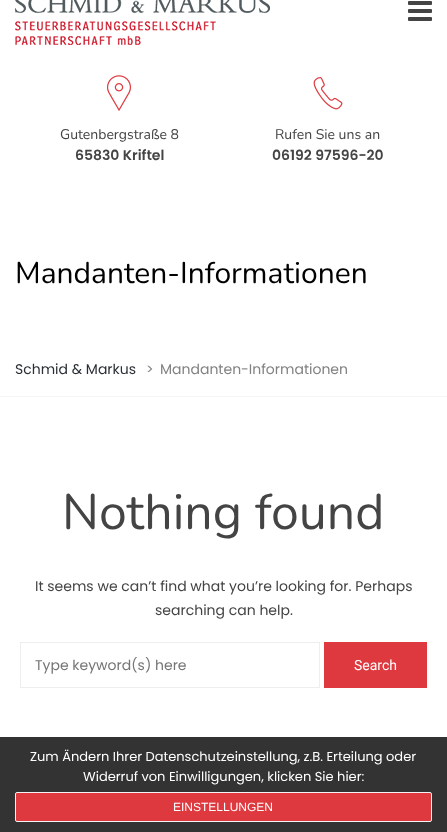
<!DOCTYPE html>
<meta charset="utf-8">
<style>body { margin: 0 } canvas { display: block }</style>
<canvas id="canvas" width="447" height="832"></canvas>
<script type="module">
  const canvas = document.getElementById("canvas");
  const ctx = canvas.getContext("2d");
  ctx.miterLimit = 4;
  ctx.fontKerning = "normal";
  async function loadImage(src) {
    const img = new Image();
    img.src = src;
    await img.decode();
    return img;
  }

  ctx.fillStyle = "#ffffff";
  ctx.fillRect(0, 0, 447, 832);
  ctx.drawImage(await loadImage("img1.png"), 15, 0, 255, 45);
  ctx.drawImage(await loadImage("img2.png"), 408, 1, 24, 20);
  ctx.drawImage(await loadImage("img3.png"), 107, 75, 24, 36);
  ctx.font = "14px Nunito";
  ctx.fillStyle = "#444444";
  ctx.fillText("Gutenbergstraße 8", 60, 139);
  ctx.font = "600 14px Poppins";
  ctx.fillText("65830 Kriftel", 75, 160);
  ctx.drawImage(await loadImage("img4.png"), 313, 77, 30, 33);
  ctx.font = "14px Nunito";
  ctx.fillText("Rufen Sie uns an", 275, 139);
  ctx.font = "600 14px Poppins";
  ctx.fillText("06192 97596-20", 272, 160);
  ctx.font = "30px Nunito";
  ctx.fillStyle = "#000000";
  ctx.fillText("Mandanten-Informationen", 15, 283);
  ctx.fillStyle = "#f5f5f5";
  ctx.fillRect(0, 396, 447, 1);
  ctx.font = "14px Poppins";
  ctx.fillStyle = "#2a2f35";
  ctx.fillText("Schmid & Markus", 15, 374);
  ctx.fillStyle = "#828282";
  ctx.fillText(">", 146, 374);
  ctx.fillText("Mandanten-Informationen", 160, 374);
  ctx.font = "50px Nunito";
  ctx.fillStyle = "#444444";
  ctx.fillText("Nothing found", 62, 529);
  ctx.font = "14px Poppins";
  ctx.fillText("It seems we can’t find what you’re looking for. Perhaps", 35, 591);
  ctx.fillText("searching can help.", 155, 615);
  ctx.strokeStyle = "#eeeeee";
  ctx.strokeRect(20.5, 642.5, 299, 45);
  ctx.fillStyle = "#757575";
  ctx.fillText("Type keyword(s) here", 35, 670);
  ctx.fillStyle = "#dd393f";
  ctx.fillRect(324, 642, 103, 46);
  ctx.font = "14px Roboto";
  ctx.fillStyle = "#ffffff";
  ctx.fillText("Search", 354, 670);
  ctx.fillStyle = "#333333";
  ctx.fillRect(0, 737, 447, 95);
  ctx.font = "13px Poppins";
  ctx.fillStyle = "#ffffff";
  ctx.fillText("Zum Ändern Ihrer Datenschutzeinstellung, z.B. Erteilung oder", 30, 761);
  ctx.fillText("Widerruf von Einwilligungen, klicken Sie hier:", 83, 781);
  ctx.fillStyle = "#dd393f";
  ctx.beginPath();
  ctx.roundRect(15.5, 792.5, 416, 29, 1.5);
  ctx.fill();
  ctx.strokeStyle = "#f3f3f3";
  ctx.stroke();
  ctx.font = "12px Liberation Sans";
  ctx.fillStyle = "#ffffff";
  ctx.fillText("EINSTELLUNGEN", 173, 811);
</script>
